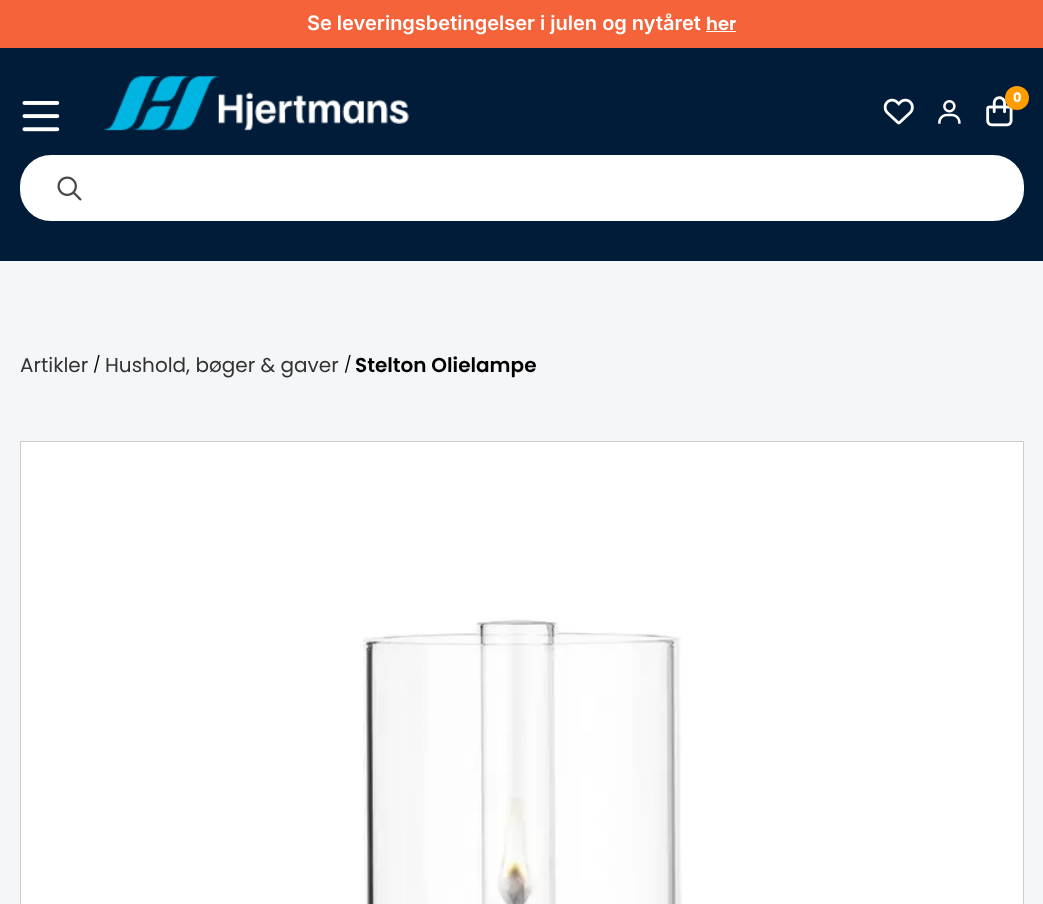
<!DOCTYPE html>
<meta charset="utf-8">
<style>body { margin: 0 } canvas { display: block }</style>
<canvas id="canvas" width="1043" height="904"></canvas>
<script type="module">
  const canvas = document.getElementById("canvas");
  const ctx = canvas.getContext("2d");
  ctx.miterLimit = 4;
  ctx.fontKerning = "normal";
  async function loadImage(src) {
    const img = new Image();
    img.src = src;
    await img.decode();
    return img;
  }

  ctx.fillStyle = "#f5f6f8";
  ctx.fillRect(0, 0, 1043, 904);
  ctx.fillStyle = "#f4633a";
  ctx.fillRect(0, 0, 1043, 48);
  ctx.font = "600 20px Inter";
  ctx.fillStyle = "#ffffff";
  ctx.fillText("Se leveringsbetingelser i julen og nytåret", 307, 30);
  ctx.font = "600 18px Poppins";
  ctx.fillText("her", 706, 30);
  ctx.fillRect(706, 31, 30, 1);
  ctx.fillStyle = "#001c38";
  ctx.fillRect(0, 48, 1043, 213);
  ctx.drawImage(await loadImage("img1.png"), 103, 76, 306, 55);
  ctx.drawImage(await loadImage("img2.png"), 986, 96, 27, 31);
  ctx.fillStyle = "#ff9d00";
  ctx.beginPath();
  ctx.arc(1017, 98, 12, 0, Math.PI * 2);
  ctx.fill();
  ctx.font = "bold 13px Poppins";
  ctx.fillStyle = "#ffffff";
  ctx.fillText("0", 1013, 102);
  ctx.drawImage(await loadImage("img3.png"), 883, 98, 31, 27);
  ctx.drawImage(await loadImage("img4.png"), 938, 100, 23, 24);
  ctx.drawImage(await loadImage("img5.png"), 22, 101, 38, 31);
  ctx.beginPath();
  ctx.roundRect(20, 155, 1004, 66, 31);
  ctx.fill();
  ctx.drawImage(await loadImage("img6.png"), 57, 176, 25, 25);
  ctx.font = "20px Poppins";
  ctx.fillStyle = "#333333";
  ctx.fillText("Artikler", 20, 372);
  ctx.font = "16px Poppins";
  ctx.fillStyle = "#000000";
  ctx.fillText("/", 93, 370);
  ctx.font = "20px Poppins";
  ctx.fillStyle = "#333333";
  ctx.fillText("Hushold, bøger & gaver", 105, 372);
  ctx.font = "16px Poppins";
  ctx.fillStyle = "#000000";
  ctx.fillText("/", 344, 370);
  ctx.font = "600 20px Poppins";
  ctx.fillText("Stelton Olielampe", 355, 372);
  ctx.fillStyle = "#ffffff";
  ctx.beginPath();
  ctx.rect(20.5, 441.5, 1003, 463);
  ctx.fill();
  ctx.strokeStyle = "#cccccc";
  ctx.stroke();
  ctx.drawImage(await loadImage("img7.png"), 363, 617, 319, 287);
</script>
